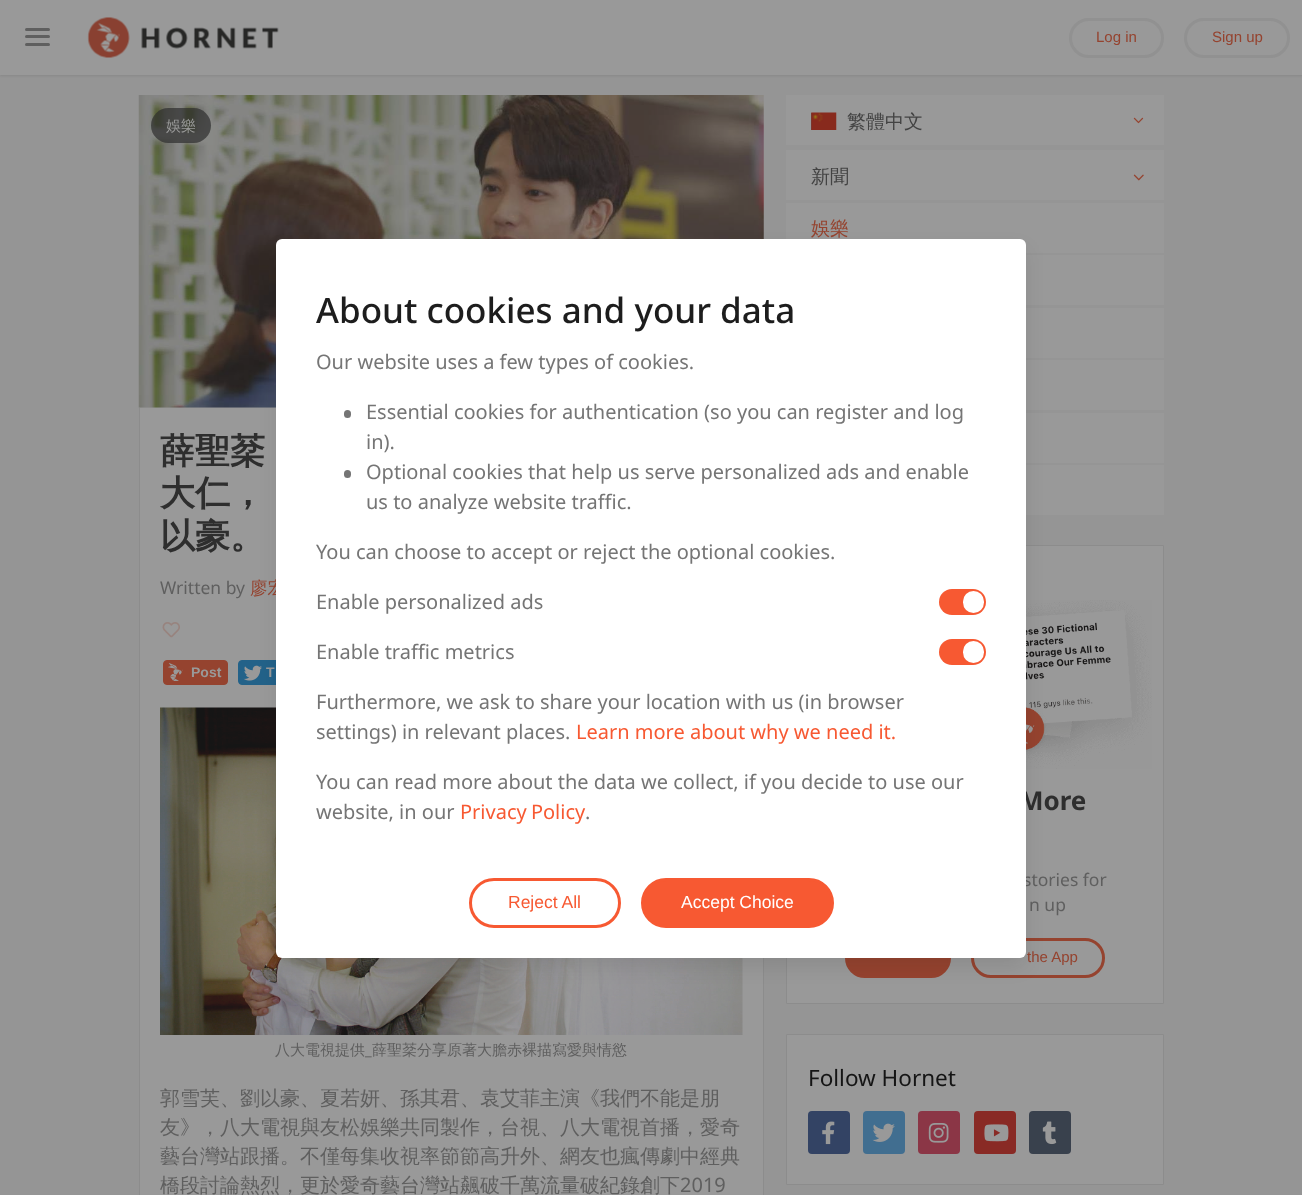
<!DOCTYPE html>
<meta charset="utf-8">
<style>body { margin: 0 } canvas { display: block }</style>
<canvas id="canvas" width="1302" height="1195"></canvas>
<script type="module">
  const canvas = document.getElementById("canvas");
  const ctx = canvas.getContext("2d");
  ctx.miterLimit = 4;
  ctx.fontKerning = "normal";
  async function loadImage(src) {
    const img = new Image();
    img.src = src;
    await img.decode();
    return img;
  }

  ctx.fillStyle = "#959595";
  ctx.fillRect(0, 0, 1302, 1195);
  ctx.fillStyle = "rgba(21, 21, 21, 0.1)";
  ctx.filter = "blur(1px)";
  ctx.beginPath();
  ctx.rect(0, 1, 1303, 75);
  ctx.fill();
  ctx.filter = "none";
  ctx.fillStyle = "#999999";
  ctx.fillRect(0, 0, 1302, 75);
  ctx.fillStyle = "#5f5f5f";
  ctx.beginPath();
  ctx.roundRect(25, 28, 25, 3, 1.5);
  ctx.fill();
  ctx.beginPath();
  ctx.roundRect(25, 35, 25, 3, 1.5);
  ctx.fill();
  ctx.beginPath();
  ctx.roundRect(25, 43, 25, 3, 1.5);
  ctx.fill();
  ctx.drawImage(await loadImage("img1.png"), 87, 17, 192, 41);
  ctx.beginPath();
  ctx.roundRect(1070.5, 19.5, 92, 37, 18.5);
  ctx.strokeStyle = "#919191";
  ctx.lineWidth = 3;
  ctx.stroke();
  ctx.font = "15px Liberation Sans";
  ctx.fillStyle = "#95432f";
  ctx.fillText("Log in", 1096, 42);
  ctx.beginPath();
  ctx.roundRect(1185.5, 19.5, 103, 37, 18.5);
  ctx.stroke();
  ctx.fillText("Sign up", 1212, 42);
  ctx.drawImage(await loadImage("img2.png"), 138, 95, 626, 313);
  ctx.fillStyle = "rgba(46, 46, 46, 0.7)";
  ctx.beginPath();
  ctx.roundRect(151, 108, 60, 35, 17.5);
  ctx.fill();
  ctx.font = "500 15px WenQuanYi Zen Hei";
  ctx.fillStyle = "#999999";
  ctx.fillText("娛樂", 166, 131);
  ctx.fillRect(140, 408, 623, 787);
  ctx.fillStyle = "#8c8c8c";
  ctx.fillRect(763, 958, 1, 237);
  ctx.fillRect(139, 408, 1, 787);
  ctx.font = "bold 35px WenQuanYi Zen Hei";
  ctx.fillStyle = "#2e2e2e";
  ctx.fillText("薛聖棻", 160, 463);
  ctx.fillText("大仁，", 160, 505);
  ctx.fillText("以豪。", 160, 548);
  ctx.font = "17.5px Noto Sans";
  ctx.fillStyle = "#5f5f5f";
  ctx.fillText("Written by", 160, 594);
  ctx.font = "500 17.5px WenQuanYi Zen Hei";
  ctx.fillStyle = "#95432f";
  ctx.fillText("廖宏", 250, 594);
  ctx.drawImage(await loadImage("img3.png"), 162, 622, 18, 16);
  ctx.beginPath();
  ctx.roundRect(163.5, 660.5, 64, 24, 3.5);
  ctx.fill();
  ctx.strokeStyle = "#95432f";
  ctx.lineWidth = 1;
  ctx.stroke();
  ctx.drawImage(await loadImage("img4.png"), 168, 663, 15, 18);
  ctx.font = "bold 14px Liberation Sans";
  ctx.fillStyle = "#999999";
  ctx.fillText("Post", 191, 677);
  ctx.fillStyle = "#236289";
  ctx.beginPath();
  ctx.roundRect(238.5, 660.5, 71, 24, 3.5);
  ctx.fill();
  ctx.strokeStyle = "#236289";
  ctx.stroke();
  ctx.drawImage(await loadImage("img5.png"), 243, 665, 19, 16);
  ctx.fillStyle = "#999999";
  ctx.fillText("T", 266, 677);
  ctx.drawImage(await loadImage("img6.png"), 160, 707, 583, 328);
  ctx.font = "500 15px WenQuanYi Zen Hei";
  ctx.fillStyle = "#5f5f5f";
  ctx.fillText("八大電視提供", 275, 1055);
  ctx.font = "15px Noto Sans";
  ctx.fillText("_", 365, 1055);
  ctx.font = "500 15px WenQuanYi Zen Hei";
  ctx.fillText("薛聖棻分享原著大膽赤裸描寫愛與情慾", 372, 1055);
  ctx.font = "500 20px WenQuanYi Zen Hei";
  ctx.fillText("郭雪芙、劉以豪、夏若妍、孫其君、袁艾菲主演《我們不能是朋", 160, 1105);
  ctx.fillText("友》，八大電視與友松娛樂共同製作，台視、八大電視首播，愛奇", 160, 1134);
  ctx.fillText("藝台灣站跟播。不僅每集收視率節節高升外、網友也瘋傳劇中經典", 160, 1163);
  ctx.fillText("橋段討論熱烈，更於愛奇藝台灣站飆破千萬流量破紀錄創下", 160, 1192);
  ctx.font = "20px Noto Sans";
  ctx.fillText("2019", 680, 1192);
  ctx.fillStyle = "#999999";
  ctx.fillRect(786, 95, 378, 50);
  ctx.fillStyle = "#5b5b5b";
  ctx.filter = "blur(0.5px)";
  ctx.beginPath();
  ctx.rect(811, 113, 25, 17);
  ctx.fill();
  ctx.filter = "none";
  ctx.drawImage(await loadImage("img7.png"), 811, 112, 26, 18);
  ctx.font = "500 19px WenQuanYi Zen Hei";
  ctx.fillStyle = "#434343";
  ctx.fillText("繁體中文", 847, 128);
  ctx.drawImage(await loadImage("img8.png"), 1133, 117, 11, 7);
  ctx.fillStyle = "#999999";
  ctx.fillRect(786, 150, 378, 50);
  ctx.fillStyle = "#434343";
  ctx.fillText("新聞", 811, 183);
  ctx.drawImage(await loadImage("img9.png"), 1133, 174, 11, 7);
  ctx.fillStyle = "#999999";
  ctx.fillRect(786, 203, 378, 50);
  ctx.fillStyle = "#95432f";
  ctx.fillText("娛樂", 811, 235);
  ctx.fillStyle = "#999999";
  ctx.fillRect(1026, 255, 138, 50);
  ctx.fillRect(1026, 308, 138, 50);
  ctx.fillRect(1026, 360, 138, 50);
  ctx.fillRect(1026, 413, 138, 50);
  ctx.fillRect(1026, 465, 138, 50);
  ctx.beginPath();
  ctx.rect(786.5, 545.5, 377, 458);
  ctx.fill();
  ctx.strokeStyle = "#8c8c8c";
  ctx.stroke();
  ctx.drawImage(await loadImage("img10.png"), 1026, 600, 126, 169);
  ctx.font = "bold 26px Noto Sans";
  ctx.fillStyle = "#2e2e2e";
  ctx.fillText("More", 1019, 810);
  ctx.font = "17.5px Noto Sans";
  ctx.fillStyle = "#5f5f5f";
  ctx.fillText("stories for", 1023, 886);
  ctx.fillText("n up", 1029, 911);
  ctx.fillStyle = "#95432f";
  ctx.beginPath();
  ctx.roundRect(846.5, 939.5, 103, 37, 18.5);
  ctx.fill();
  ctx.strokeStyle = "#95432f";
  ctx.lineWidth = 3;
  ctx.stroke();
  ctx.beginPath();
  ctx.roundRect(972.5, 939.5, 131, 37, 18.5);
  ctx.stroke();
  ctx.font = "15px Liberation Sans";
  ctx.fillText("the App", 1027, 962);
  ctx.fillStyle = "#999999";
  ctx.beginPath();
  ctx.rect(786.5, 1034.5, 377, 150);
  ctx.fill();
  ctx.strokeStyle = "#8c8c8c";
  ctx.lineWidth = 1;
  ctx.stroke();
  ctx.font = "22.5px Noto Sans";
  ctx.fillStyle = "#151515";
  ctx.fillText("Follow Hornet", 808, 1086);
  ctx.fillStyle = "#334364";
  ctx.beginPath();
  ctx.roundRect(808, 1111, 42, 43, 4);
  ctx.fill();
  ctx.drawImage(await loadImage("img11.png"), 822, 1121, 13, 24);
  ctx.fillStyle = "#416e90";
  ctx.beginPath();
  ctx.roundRect(863, 1111, 42, 43, 4);
  ctx.fill();
  ctx.drawImage(await loadImage("img12.png"), 872, 1123, 23, 19);
  ctx.fillStyle = "#8b3646";
  ctx.beginPath();
  ctx.roundRect(918, 1111, 42, 43, 4);
  ctx.fill();
  ctx.drawImage(await loadImage("img13.png"), 928, 1123, 21, 20);
  ctx.fillStyle = "#892a25";
  ctx.beginPath();
  ctx.roundRect(974, 1111, 42, 43, 4);
  ctx.fill();
  ctx.drawImage(await loadImage("img14.png"), 984, 1124, 25, 18);
  ctx.fillStyle = "#39414d";
  ctx.beginPath();
  ctx.roundRect(1029, 1111, 42, 43, 4);
  ctx.fill();
  ctx.drawImage(await loadImage("img15.png"), 1042, 1121, 15, 24);
  ctx.fillStyle = "rgba(10, 10, 10, 0.1)";
  ctx.filter = "blur(10px)";
  ctx.beginPath();
  ctx.roundRect(279, 251, 745, 714, 4);
  ctx.fill();
  ctx.filter = "none";
  ctx.fillStyle = "#ffffff";
  ctx.beginPath();
  ctx.roundRect(276, 239, 750, 719, 6);
  ctx.fill();
  ctx.font = "500 35px Noto Sans";
  ctx.fillStyle = "#1d1d1d";
  ctx.fillText("About cookies and your data", 316, 323);
  ctx.font = "20px Noto Sans";
  ctx.fillStyle = "#757575";
  ctx.fillText("Our website uses a few types of cookies.", 316, 369);
  ctx.beginPath();
  ctx.roundRect(344, 410, 7, 8, 3.5);
  ctx.fill();
  ctx.fillText("Essential cookies for authentication (so you can register and log", 366, 419);
  ctx.fillText("in).", 366, 449);
  ctx.beginPath();
  ctx.roundRect(344, 470, 7, 8, 3.5);
  ctx.fill();
  ctx.fillText("Optional cookies that help us serve personalized ads and enable", 366, 479);
  ctx.fillText("us to analyze website traffic.", 366, 509);
  ctx.fillText("You can choose to accept or reject the optional cookies.", 316, 559);
  ctx.fillText("Enable personalized ads", 316, 609);
  ctx.fillStyle = "#f75932";
  ctx.beginPath();
  ctx.roundRect(939, 589, 47, 26, 13);
  ctx.fill();
  ctx.fillStyle = "#ffffff";
  ctx.beginPath();
  ctx.roundRect(963, 591, 21, 22, 10.5);
  ctx.fill();
  ctx.fillStyle = "#757575";
  ctx.fillText("Enable traffic metrics", 316, 659);
  ctx.fillStyle = "#f75932";
  ctx.beginPath();
  ctx.roundRect(939, 639, 47, 26, 13);
  ctx.fill();
  ctx.fillStyle = "#ffffff";
  ctx.beginPath();
  ctx.roundRect(963, 641, 21, 22, 10.5);
  ctx.fill();
  ctx.fillStyle = "#757575";
  ctx.fillText("Furthermore, we ask to share your location with us (in browser", 316, 709);
  ctx.fillText("settings) in relevant places.", 316, 739);
  ctx.fillStyle = "#f75932";
  ctx.fillText("Learn more about why we need it.", 576, 739);
  ctx.fillStyle = "#757575";
  ctx.fillText("You can read more about the data we collect, if you decide to use our", 316, 789);
  ctx.fillText("website, in our", 316, 819);
  ctx.wordSpacing = "-1px";
  ctx.fillStyle = "#f75932";
  ctx.fillText("Privacy Policy", 460, 819);
  ctx.wordSpacing = "0px";
  ctx.fillStyle = "#757575";
  ctx.fillText(".", 585, 819);
  ctx.beginPath();
  ctx.roundRect(470.5, 879.5, 149, 47, 23.5);
  ctx.strokeStyle = "#f75932";
  ctx.lineWidth = 3;
  ctx.stroke();
  ctx.font = "17.5px Liberation Sans";
  ctx.fillStyle = "#f75932";
  ctx.fillText("Reject All", 508, 908);
  ctx.beginPath();
  ctx.roundRect(642.5, 879.5, 190, 47, 23.5);
  ctx.fill();
  ctx.stroke();
  ctx.fillStyle = "#ffffff";
  ctx.fillText("Accept Choice", 681, 908);
</script>
